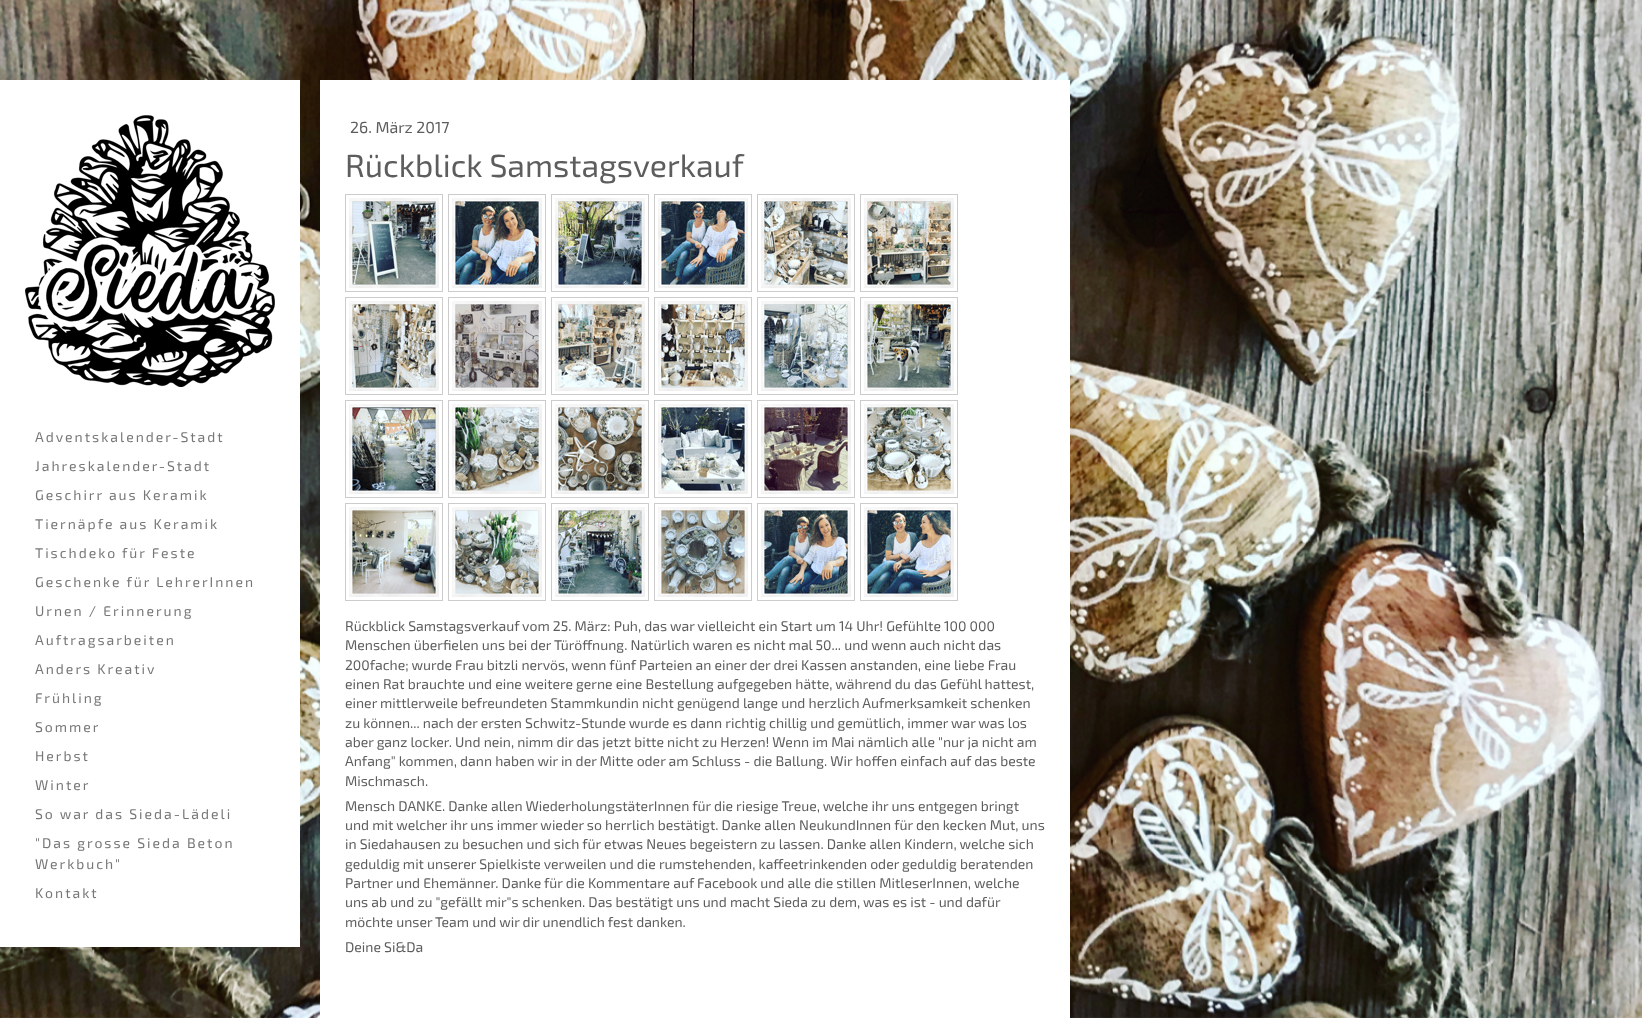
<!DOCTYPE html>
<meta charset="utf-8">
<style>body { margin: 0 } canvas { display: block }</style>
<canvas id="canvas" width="1642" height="1018"></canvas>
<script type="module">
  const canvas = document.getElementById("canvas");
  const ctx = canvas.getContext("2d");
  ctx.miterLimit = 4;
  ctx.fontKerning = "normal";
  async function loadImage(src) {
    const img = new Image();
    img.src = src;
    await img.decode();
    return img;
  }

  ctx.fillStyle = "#ffffff";
  ctx.fillRect(0, 0, 1642, 1018);
  ctx.drawImage(await loadImage("img1.png"), 0, 0, 1642, 1018);
  ctx.fillRect(0, 80, 300, 867);
  ctx.drawImage(await loadImage("img2.png"), 25, 115, 250, 272);
  ctx.letterSpacing = "2px";
  ctx.font = "14px 'Exo 2'";
  ctx.fillStyle = "#777777";
  ctx.fillText("Adventskalender-Stadt", 35, 442);
  ctx.fillText("Jahreskalender-Stadt", 35, 471);
  ctx.fillText("Geschirr aus Keramik", 35, 500);
  ctx.fillText("Tiernäpfe aus Keramik", 35, 529);
  ctx.fillText("Tischdeko für Feste", 35, 558);
  ctx.fillText("Geschenke für LehrerInnen", 35, 587);
  ctx.fillText("Urnen / Erinnerung", 35, 616);
  ctx.fillText("Auftragsarbeiten", 35, 645);
  ctx.fillText("Anders Kreativ", 35, 674);
  ctx.fillText("Frühling", 35, 703);
  ctx.fillText("Sommer", 35, 732);
  ctx.fillText("Herbst", 35, 761);
  ctx.fillText("Winter", 35, 790);
  ctx.fillText("So war das Sieda-Lädeli", 35, 819);
  ctx.fillText("\"Das grosse Sieda Beton", 35, 848);
  ctx.fillText("Werkbuch\"", 35, 869);
  ctx.fillText("Kontakt", 35, 898);
  ctx.fillStyle = "#ffffff";
  ctx.fillRect(320, 80, 750, 938);
  ctx.letterSpacing = "0px";
  ctx.font = "16px 'Exo 2'";
  ctx.fillStyle = "#5d5d5d";
  ctx.fillText("26. März 2017", 350, 133);
  ctx.font = "32px 'Exo 2'";
  ctx.fillText("Rückblick Samstagsverkauf", 345, 177);
  ctx.strokeStyle = "#cccccc";
  ctx.strokeRect(345.5, 194.5, 97, 97);
  ctx.drawImage(await loadImage("img3.png"), 349, 198, 90, 90);
  ctx.strokeRect(448.5, 194.5, 97, 97);
  ctx.drawImage(await loadImage("img4.png"), 452, 198, 90, 90);
  ctx.strokeRect(551.5, 194.5, 97, 97);
  ctx.drawImage(await loadImage("img5.png"), 555, 198, 90, 90);
  ctx.strokeRect(654.5, 194.5, 97, 97);
  ctx.drawImage(await loadImage("img6.png"), 658, 198, 90, 90);
  ctx.strokeRect(757.5, 194.5, 97, 97);
  ctx.drawImage(await loadImage("img7.png"), 761, 198, 90, 90);
  ctx.strokeRect(860.5, 194.5, 97, 97);
  ctx.drawImage(await loadImage("img8.png"), 864, 198, 90, 90);
  ctx.strokeRect(345.5, 297.5, 97, 97);
  ctx.drawImage(await loadImage("img9.png"), 349, 301, 90, 90);
  ctx.strokeRect(448.5, 297.5, 97, 97);
  ctx.drawImage(await loadImage("img10.png"), 452, 301, 90, 90);
  ctx.strokeRect(551.5, 297.5, 97, 97);
  ctx.drawImage(await loadImage("img11.png"), 555, 301, 90, 90);
  ctx.strokeRect(654.5, 297.5, 97, 97);
  ctx.drawImage(await loadImage("img12.png"), 658, 301, 90, 90);
  ctx.strokeRect(757.5, 297.5, 97, 97);
  ctx.drawImage(await loadImage("img13.png"), 761, 301, 90, 90);
  ctx.strokeRect(860.5, 297.5, 97, 97);
  ctx.drawImage(await loadImage("img14.png"), 864, 301, 90, 90);
  ctx.strokeRect(345.5, 400.5, 97, 97);
  ctx.drawImage(await loadImage("img15.png"), 349, 404, 90, 90);
  ctx.strokeRect(448.5, 400.5, 97, 97);
  ctx.drawImage(await loadImage("img16.png"), 452, 404, 90, 90);
  ctx.strokeRect(551.5, 400.5, 97, 97);
  ctx.drawImage(await loadImage("img17.png"), 555, 404, 90, 90);
  ctx.strokeRect(654.5, 400.5, 97, 97);
  ctx.drawImage(await loadImage("img18.png"), 658, 404, 90, 90);
  ctx.strokeRect(757.5, 400.5, 97, 97);
  ctx.drawImage(await loadImage("img19.png"), 761, 404, 90, 90);
  ctx.strokeRect(860.5, 400.5, 97, 97);
  ctx.drawImage(await loadImage("img20.png"), 864, 404, 90, 90);
  ctx.strokeRect(345.5, 503.5, 97, 97);
  ctx.drawImage(await loadImage("img21.png"), 349, 507, 90, 90);
  ctx.strokeRect(448.5, 503.5, 97, 97);
  ctx.drawImage(await loadImage("img22.png"), 452, 507, 90, 90);
  ctx.strokeRect(551.5, 503.5, 97, 97);
  ctx.drawImage(await loadImage("img23.png"), 555, 507, 90, 90);
  ctx.strokeRect(654.5, 503.5, 97, 97);
  ctx.drawImage(await loadImage("img24.png"), 658, 507, 90, 90);
  ctx.strokeRect(757.5, 503.5, 97, 97);
  ctx.drawImage(await loadImage("img25.png"), 761, 507, 90, 90);
  ctx.strokeRect(860.5, 503.5, 97, 97);
  ctx.drawImage(await loadImage("img26.png"), 864, 507, 90, 90);
  ctx.font = "14px 'Exo 2'";
  ctx.fillText("Rückblick Samstagsverkauf vom 25. März: Puh, das war vielleicht ein Start um 14 Uhr! Gefühlte 100 000", 345, 631);
  ctx.fillText("Menschen überfielen uns bei der Türöffnung. Natürlich waren es nicht mal 50... und wenn auch nicht das", 345, 650);
  ctx.fillText("200fache; wurde Frau bitzli nervös, wenn fünf Parteien an einer der drei Kassen anstanden, eine liebe Frau", 345, 670);
  ctx.fillText("einen Rat brauchte und eine weitere gerne eine Bestellung aufgegeben hätte, während du das Gefühl hattest,", 345, 689);
  ctx.fillText("einer mittlerweile befreundeten Stammkundin nicht genügend lange und herzlich Aufmerksamkeit schenken", 345, 708);
  ctx.fillText("zu können... nach der ersten Schwitz-Stunde wurde es dann richtig chillig und gemütlich, immer war was los", 345, 728);
  ctx.fillText("aber ganz locker. Und nein, nimm dir das jetzt bitte nicht zu Herzen! Wenn im Mai nämlich alle \"nur ja nicht am", 345, 747);
  ctx.fillText("Anfang\" kommen, dann haben wir in der Mitte oder am Schluss - die Ballung. Wir hoffen einfach auf das beste", 345, 766);
  ctx.fillText("Mischmasch.", 345, 786);
  ctx.fillText("Mensch DANKE. Danke allen WiederholungstäterInnen für die riesige Treue, welche ihr uns entgegen bringt", 345, 811);
  ctx.fillText("und mit welcher ihr uns immer wieder so herrlich bestätigt. Danke allen NeukundInnen für den kecken Mut, uns", 345, 830);
  ctx.fillText("in Siedahausen zu besuchen und sich für etwas Neues begeistern zu lassen. Danke allen Kindern, welche sich", 345, 849);
  ctx.fillText("geduldig mit unserer Spielkiste verweilen und die rumstehenden, kaffeetrinkenden oder geduldig beratenden", 345, 869);
  ctx.fillText("Partner und Ehemänner. Danke für die Kommentare auf Facebook und alle die stillen MitleserInnen, welche", 345, 888);
  ctx.fillText("uns ab und zu \"gefällt mir\"s schenken. Das bestätigt uns und macht Sieda zu dem, was es ist - und dafür", 345, 907);
  ctx.fillText("möchte unser Team und wir dir unendlich fest danken.", 345, 927);
  ctx.fillText("Deine Si&Da", 345, 952);
</script>
